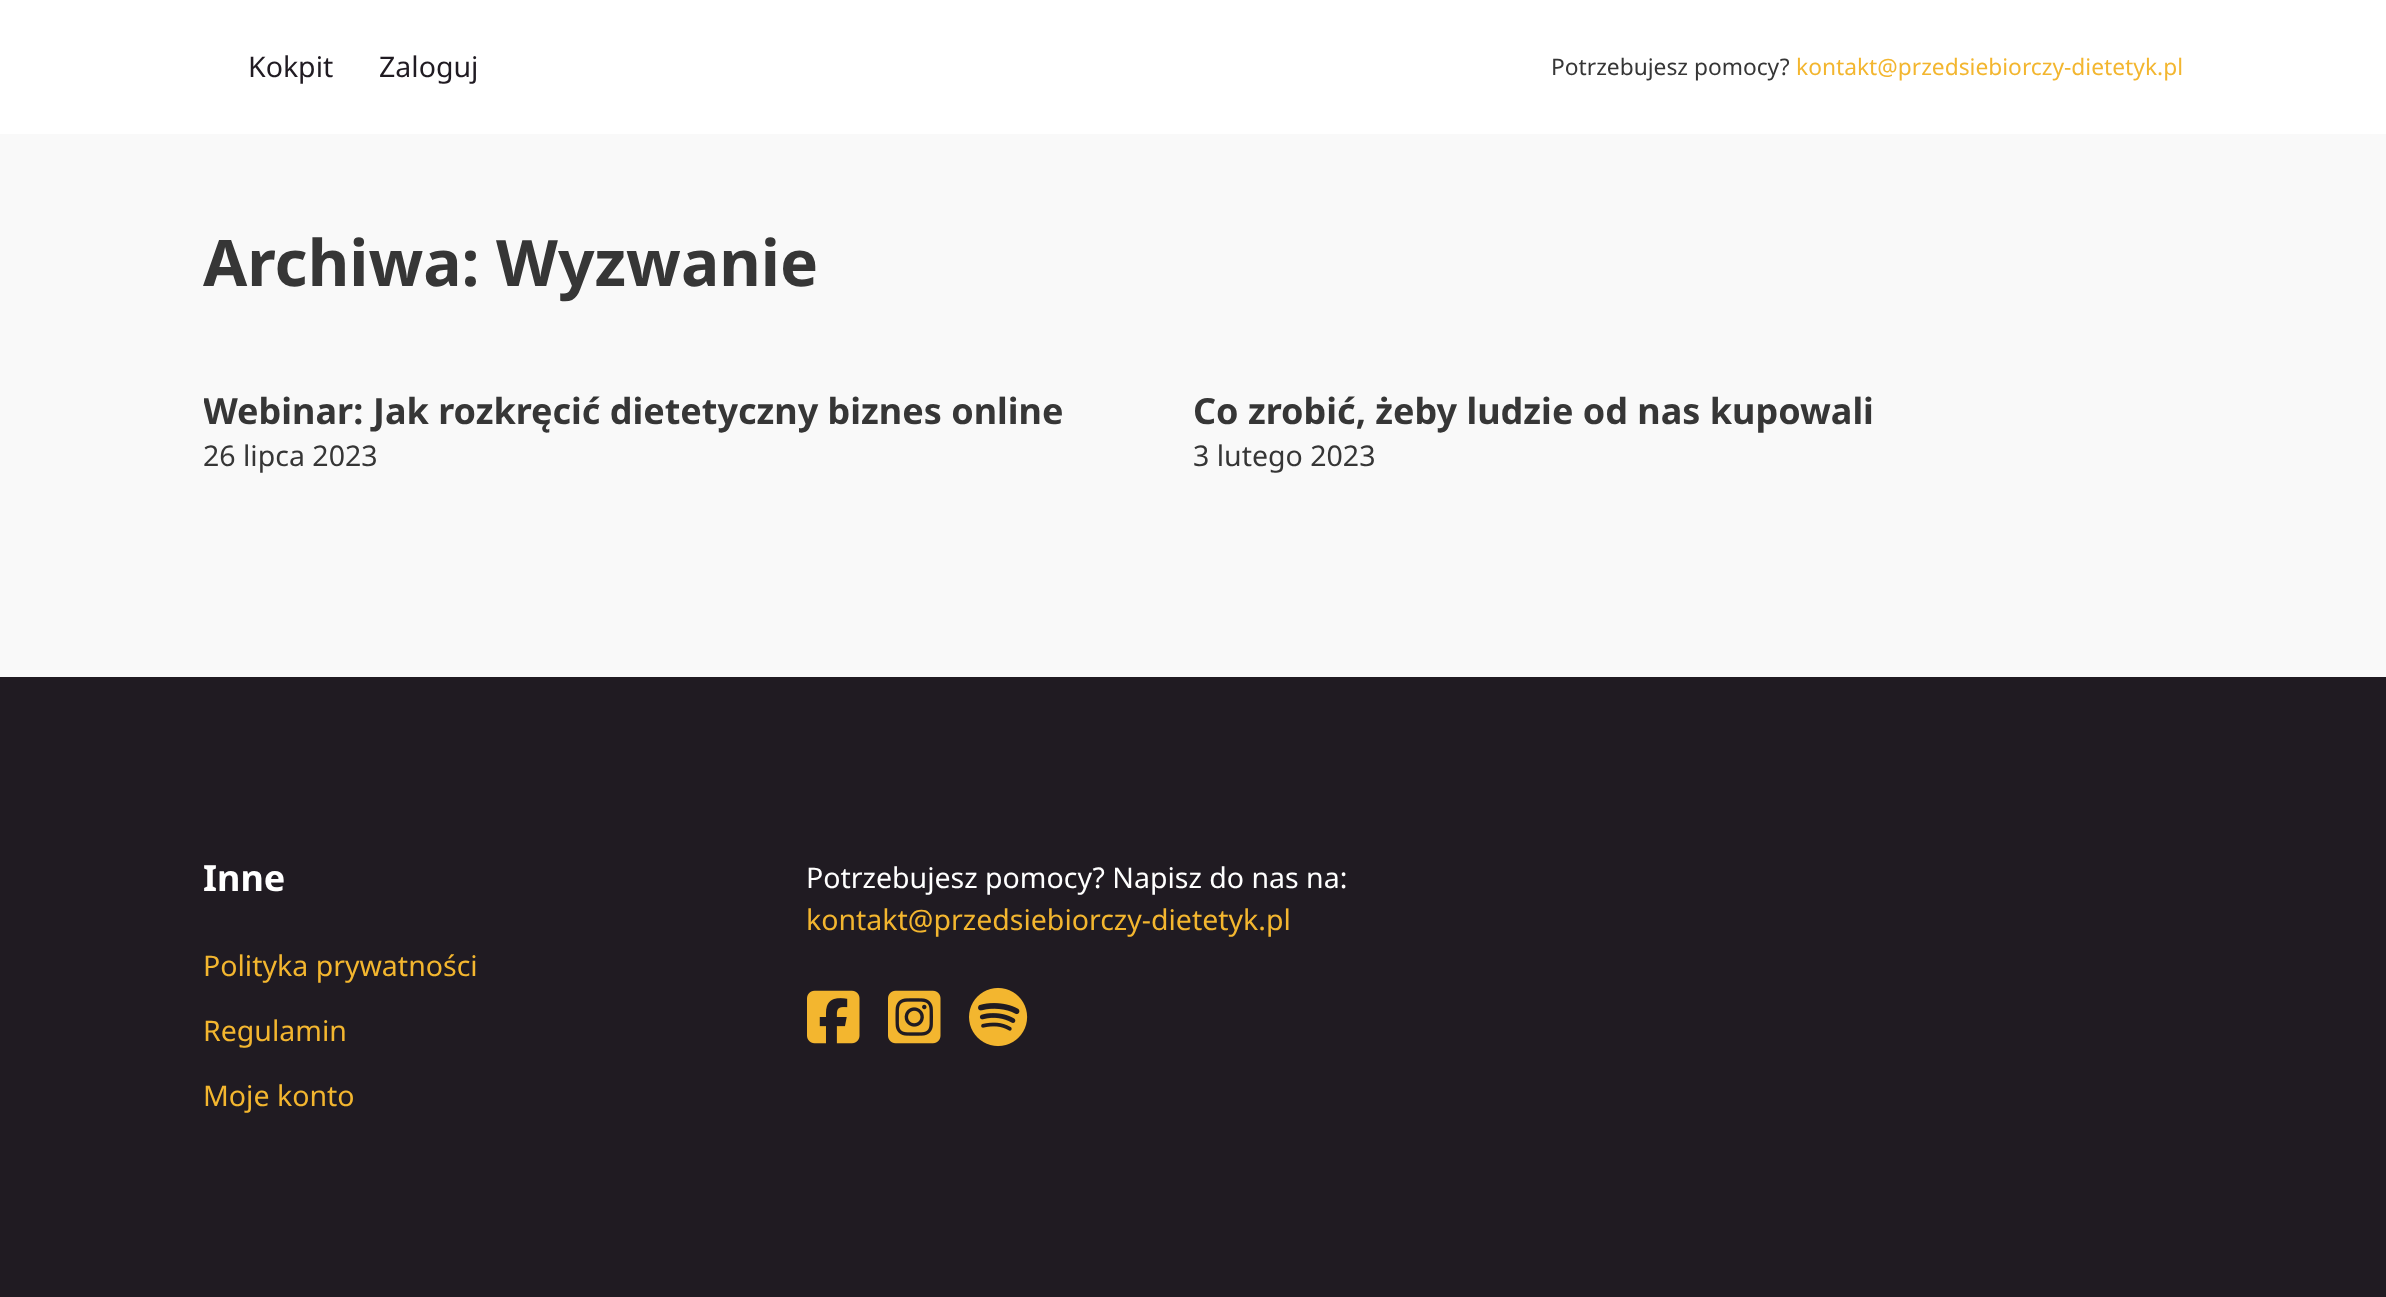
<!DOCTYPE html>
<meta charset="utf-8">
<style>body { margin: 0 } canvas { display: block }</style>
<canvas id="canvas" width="2386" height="1297"></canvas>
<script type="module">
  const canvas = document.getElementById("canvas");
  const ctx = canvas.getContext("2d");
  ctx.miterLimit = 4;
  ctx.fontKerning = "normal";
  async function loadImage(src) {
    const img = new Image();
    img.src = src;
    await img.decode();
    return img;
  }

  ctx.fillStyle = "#f9f9f9";
  ctx.fillRect(0, 0, 2386, 1297);
  ctx.fillStyle = "#ffffff";
  ctx.fillRect(0, 0, 2386, 134);
  ctx.font = "28.5px Noto Sans";
  ctx.fillStyle = "#201b22";
  ctx.fillText("Kokpit", 248, 77);
  ctx.fillText("Zaloguj", 379, 77);
  ctx.font = "22.75px Noto Sans";
  ctx.fillStyle = "#363636";
  ctx.fillText("Potrzebujesz pomocy?", 1551, 75);
  ctx.fillStyle = "#f3b62f";
  ctx.fillText("kontakt@przedsiebiorczy-dietetyk.pl", 1796, 75);
  ctx.font = "bold 64px Noto Sans";
  ctx.fillStyle = "#363636";
  ctx.fillText("Archiwa: Wyzwanie", 203, 286);
  ctx.save();
  ctx.beginPath();
  ctx.rect(204, 390, 990, 89);
  ctx.clip();
  ctx.font = "bold 36px Noto Sans";
  ctx.fillText("Webinar:", 203, 424);
  ctx.restore();
  ctx.font = "bold 36px Noto Sans";
  ctx.fillText("Jak rozkręcić dietetyczny biznes online", 373, 424);
  ctx.font = "28.5px Noto Sans";
  ctx.fillText("26 lipca 2023", 203, 466);
  ctx.font = "bold 36px Noto Sans";
  ctx.fillText("Co zrobić, żeby ludzie od nas kupowali", 1193, 424);
  ctx.font = "28.5px Noto Sans";
  ctx.fillText("3 lutego 2023", 1193, 466);
  ctx.fillStyle = "#201b22";
  ctx.fillRect(0, 677, 2386, 620);
  ctx.font = "bold 36px Noto Sans";
  ctx.fillStyle = "#ffffff";
  ctx.fillText("Inne", 203, 891);
  ctx.font = "28.5px Noto Sans";
  ctx.fillStyle = "#f3b62f";
  ctx.fillText("Polityka prywatności", 203, 976);
  ctx.fillText("Regulamin", 203, 1041);
  ctx.fillText("Moje konto", 203, 1106);
  ctx.fillStyle = "#ffffff";
  ctx.fillText("Potrzebujesz pomocy? Napisz do nas na:", 806, 888);
  ctx.fillStyle = "#f3b62f";
  ctx.fillText("kontakt@przedsiebiorczy-dietetyk.pl", 806, 930);
  ctx.drawImage(await loadImage("img1.png"), 807, 990, 53, 54);
  ctx.drawImage(await loadImage("img2.png"), 888, 990, 53, 54);
  ctx.drawImage(await loadImage("img3.png"), 969, 987, 59, 60);
</script>
